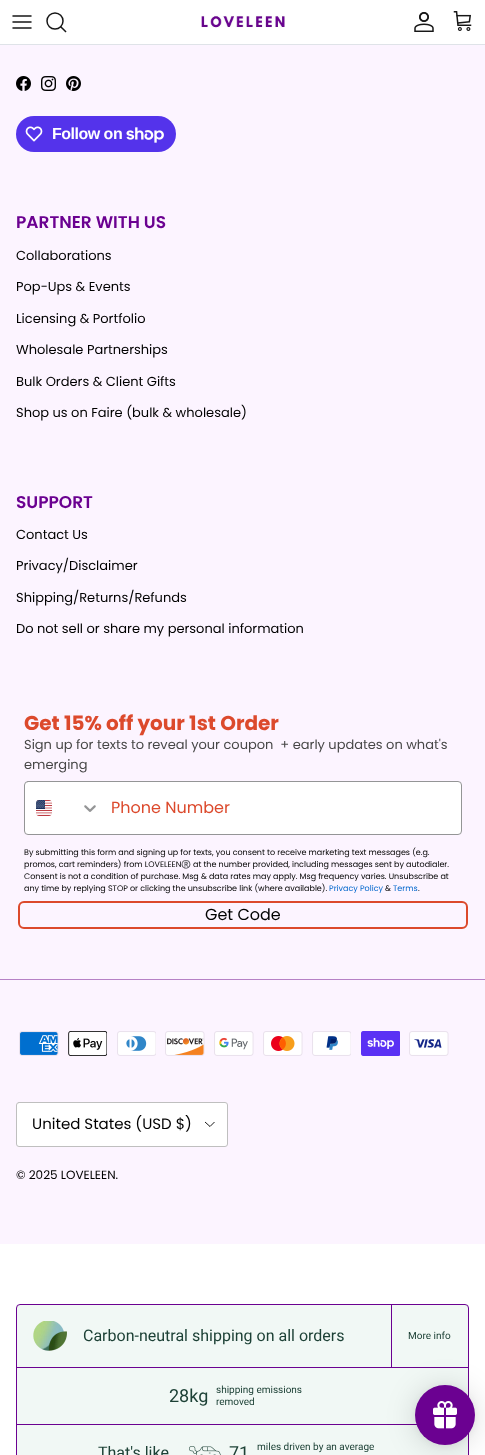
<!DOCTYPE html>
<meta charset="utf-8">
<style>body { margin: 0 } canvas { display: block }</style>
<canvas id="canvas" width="485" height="1455"></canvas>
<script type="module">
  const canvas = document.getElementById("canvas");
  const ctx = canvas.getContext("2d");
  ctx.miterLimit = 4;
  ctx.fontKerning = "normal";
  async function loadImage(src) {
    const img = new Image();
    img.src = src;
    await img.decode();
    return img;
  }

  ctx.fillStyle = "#ffffff";
  ctx.fillRect(0, 0, 485, 1455);
  ctx.fillStyle = "#dfe3e8";
  ctx.fillRect(0, 44, 485, 1);
  ctx.beginPath();
  ctx.moveTo(13, 22);
  ctx.lineTo(31, 22);
  ctx.moveTo(13, 16);
  ctx.lineTo(31, 16);
  ctx.moveTo(13, 28);
  ctx.lineTo(31, 28);
  ctx.strokeStyle = "#171717";
  ctx.lineWidth = 1.5;
  ctx.lineCap = "round";
  ctx.lineJoin = "round";
  ctx.stroke();
  ctx.beginPath();
  ctx.arc(55, 21, 8, 0, Math.PI * 2);
  ctx.stroke();
  ctx.beginPath();
  ctx.moveTo(61, 27);
  ctx.lineTo(65.5, 31.5);
  ctx.lineCap = "square";
  ctx.lineJoin = "miter";
  ctx.stroke();
  ctx.drawImage(await loadImage("img1.png"), 201, 14, 84, 14);
  ctx.drawImage(await loadImage("img2.png"), 414, 12, 20, 20);
  ctx.drawImage(await loadImage("img3.png"), 453, 11, 19, 20);
  ctx.fillStyle = "#fcf4ff";
  ctx.fillRect(0, 45, 485, 1199);
  ctx.drawImage(await loadImage("img4.png"), 16, 76, 15, 15);
  ctx.drawImage(await loadImage("img5.png"), 41, 76, 15, 15);
  ctx.drawImage(await loadImage("img6.png"), 66, 76, 15, 15);
  ctx.fillStyle = "#5433eb";
  ctx.beginPath();
  ctx.roundRect(16, 116, 160, 36, 18);
  ctx.fill();
  ctx.drawImage(await loadImage("img7.png"), 25, 126, 18, 16);
  ctx.letterSpacing = "-0.5px";
  ctx.font = "bold 16px Liberation Sans";
  ctx.fillStyle = "#ffffff";
  ctx.fillText("Follow on", 52, 139);
  ctx.drawImage(await loadImage("img8.png"), 126, 127, 38, 16);
  ctx.letterSpacing = "0px";
  ctx.font = "600 17px Poppins";
  ctx.fillStyle = "#6b0191";
  ctx.fillText("PARTNER WITH US", 16, 228);
  ctx.font = "13px Poppins";
  ctx.fillStyle = "#000000";
  ctx.fillText("Collaborations", 16, 260);
  ctx.fillText("Pop-Ups & Events", 16, 291);
  ctx.fillText("Licensing & Portfolio", 16, 323);
  ctx.fillText("Wholesale Partnerships", 16, 354);
  ctx.fillText("Bulk Orders & Client Gifts", 16, 386);
  ctx.fillText("Shop us on Faire (bulk & wholesale)", 16, 417);
  ctx.font = "600 17px Poppins";
  ctx.fillStyle = "#6b0191";
  ctx.fillText("SUPPORT", 16, 508);
  ctx.font = "13px Poppins";
  ctx.fillStyle = "#000000";
  ctx.fillText("Contact Us", 16, 539);
  ctx.fillText("Privacy/Disclaimer", 16, 570);
  ctx.fillText("Shipping/Returns/Refunds", 16, 602);
  ctx.fillText("Do not sell or share my personal information", 16, 633);
  ctx.font = "bold 20px Poppins";
  ctx.fillStyle = "#dc492c";
  ctx.fillText("Get 15% off your 1st Order", 24, 730);
  ctx.font = "13px 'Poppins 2'";
  ctx.fillStyle = "#474747";
  ctx.fillText("Sign up for texts to reveal your coupon  + early updates on what's", 24, 749);
  ctx.fillText("emerging", 24, 769);
  ctx.fillStyle = "#ffffff";
  ctx.beginPath();
  ctx.roundRect(24.5, 781.5, 437, 53, 3.5);
  ctx.fill();
  ctx.strokeStyle = "#949596";
  ctx.lineWidth = 1;
  ctx.stroke();
  ctx.drawImage(await loadImage("img9.png"), 36, 800, 16, 16);
  ctx.drawImage(await loadImage("img10.png"), 84, 805, 12, 7);
  ctx.font = "16px 'Poppins 2'";
  ctx.fillStyle = "#dc492c";
  ctx.fillText("Phone Number", 111, 813);
  ctx.font = "8px 'Poppins 2'";
  ctx.fillStyle = "#000000";
  ctx.fillText("By submitting this form and signing up for texts, you consent to receive marketing text messages (e.g.", 24, 855);
  ctx.fillText("promos, cart reminders) from LOVELEEN", 24, 867);
  ctx.font = "8px Noto Color Emoji";
  ctx.fillText("®️", 181, 867);
  ctx.font = "8px 'Poppins 2'";
  ctx.fillText("at the number provided, including messages sent by autodialer.", 193, 867);
  ctx.fillText("Consent is not a condition of purchase. Msg & data rates may apply. Msg frequency varies. Unsubscribe at", 24, 879);
  ctx.fillText("any time by replying STOP or clicking the unsubscribe link (where available).", 24, 891);
  ctx.fillStyle = "#0066cc";
  ctx.fillText("Privacy Policy", 329, 891);
  ctx.fillStyle = "#000000";
  ctx.fillText("&", 385, 891);
  ctx.fillStyle = "#0066cc";
  ctx.fillText("Terms", 393, 891);
  ctx.fillStyle = "#000000";
  ctx.fillText(".", 418, 891);
  ctx.beginPath();
  ctx.roundRect(19, 902, 448, 26, 5);
  ctx.strokeStyle = "#dc492c";
  ctx.lineWidth = 2;
  ctx.stroke();
  ctx.font = "16px 'Poppins 2'";
  ctx.fillText("Get Code", 205, 920);
  ctx.fillStyle = "#b681c6";
  ctx.fillRect(0, 979, 485, 1);
  ctx.drawImage(await loadImage("img11.png"), 19, 1031, 40, 25);
  ctx.drawImage(await loadImage("img12.png"), 68, 1031, 39, 25);
  ctx.drawImage(await loadImage("img13.png"), 117, 1031, 39, 25);
  ctx.drawImage(await loadImage("img14.png"), 165, 1031, 40, 25);
  ctx.drawImage(await loadImage("img15.png"), 214, 1031, 40, 25);
  ctx.drawImage(await loadImage("img16.png"), 263, 1031, 40, 25);
  ctx.drawImage(await loadImage("img17.png"), 312, 1031, 39, 25);
  ctx.drawImage(await loadImage("img18.png"), 361, 1031, 39, 25);
  ctx.drawImage(await loadImage("img19.png"), 409, 1031, 40, 25);
  ctx.fillStyle = "#ffffff";
  ctx.beginPath();
  ctx.roundRect(16.5, 1102.5, 211, 44, 2.5);
  ctx.fill();
  ctx.strokeStyle = "#bfbfbf";
  ctx.lineWidth = 1;
  ctx.stroke();
  ctx.font = "15px Poppins";
  ctx.fillStyle = "#000000";
  ctx.fillText("United States (USD $)", 32, 1129);
  ctx.beginPath();
  ctx.moveTo(214.5, 1122);
  ctx.lineTo(210, 1126.5);
  ctx.lineTo(205, 1122);
  ctx.strokeStyle = "#000000";
  ctx.lineWidth = 0.9;
  ctx.lineCap = "butt";
  ctx.stroke();
  ctx.font = "12px Poppins";
  ctx.fillText("© 2025 LOVELEEN.", 16, 1179);
  ctx.fillStyle = "#f1f8f5";
  ctx.beginPath();
  ctx.roundRect(16.5, 1304.5, 452, 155, 3.5);
  ctx.fill();
  ctx.strokeStyle = "#6b0191";
  ctx.lineWidth = 1;
  ctx.stroke();
  ctx.fillStyle = "#6b0191";
  ctx.fillRect(391, 1305, 1, 63);
  ctx.fillRect(17, 1367, 451, 1);
  ctx.drawImage(await loadImage("img20.png"), 33, 1321, 34, 30);
  ctx.font = "16px Roboto";
  ctx.fillStyle = "#1d4136";
  ctx.fillText("Carbon-neutral shipping on all orders", 83, 1341);
  ctx.font = "10px Roboto";
  ctx.fillText("More info", 408, 1339);
  ctx.fillStyle = "#6b0191";
  ctx.fillRect(17, 1424, 400, 1);
  ctx.font = "18px Roboto";
  ctx.fillStyle = "#1d4136";
  ctx.fillText("28kg", 169, 1402);
  ctx.font = "10px Roboto";
  ctx.fillText("shipping emissions", 216, 1393);
  ctx.fillText("removed", 216, 1405);
  ctx.font = "16px Roboto";
  ctx.fillText("That's like", 98, 1458);
  ctx.drawImage(await loadImage("img21.png"), 189, 1446, 32, 9);
  ctx.font = "18px Roboto";
  ctx.fillText("71", 229, 1459);
  ctx.font = "10px Roboto";
  ctx.fillText("miles driven by an average", 257, 1450);
  ctx.fillStyle = "rgba(0, 0, 0, 0.15)";
  ctx.filter = "blur(15px)";
  ctx.beginPath();
  ctx.roundRect(415, 1387, 60, 60, 30);
  ctx.fill();
  ctx.filter = "none";
  ctx.fillStyle = "rgba(0, 0, 0, 0.05)";
  ctx.filter = "blur(3px)";
  ctx.beginPath();
  ctx.roundRect(415, 1386, 60, 60, 30);
  ctx.fill();
  ctx.filter = "none";
  ctx.fillStyle = "#6b0191";
  ctx.beginPath();
  ctx.arc(445, 1415, 30, 0, Math.PI * 2);
  ctx.fill();
  ctx.drawImage(await loadImage("img22.png"), 433, 1401, 24, 28);
</script>
